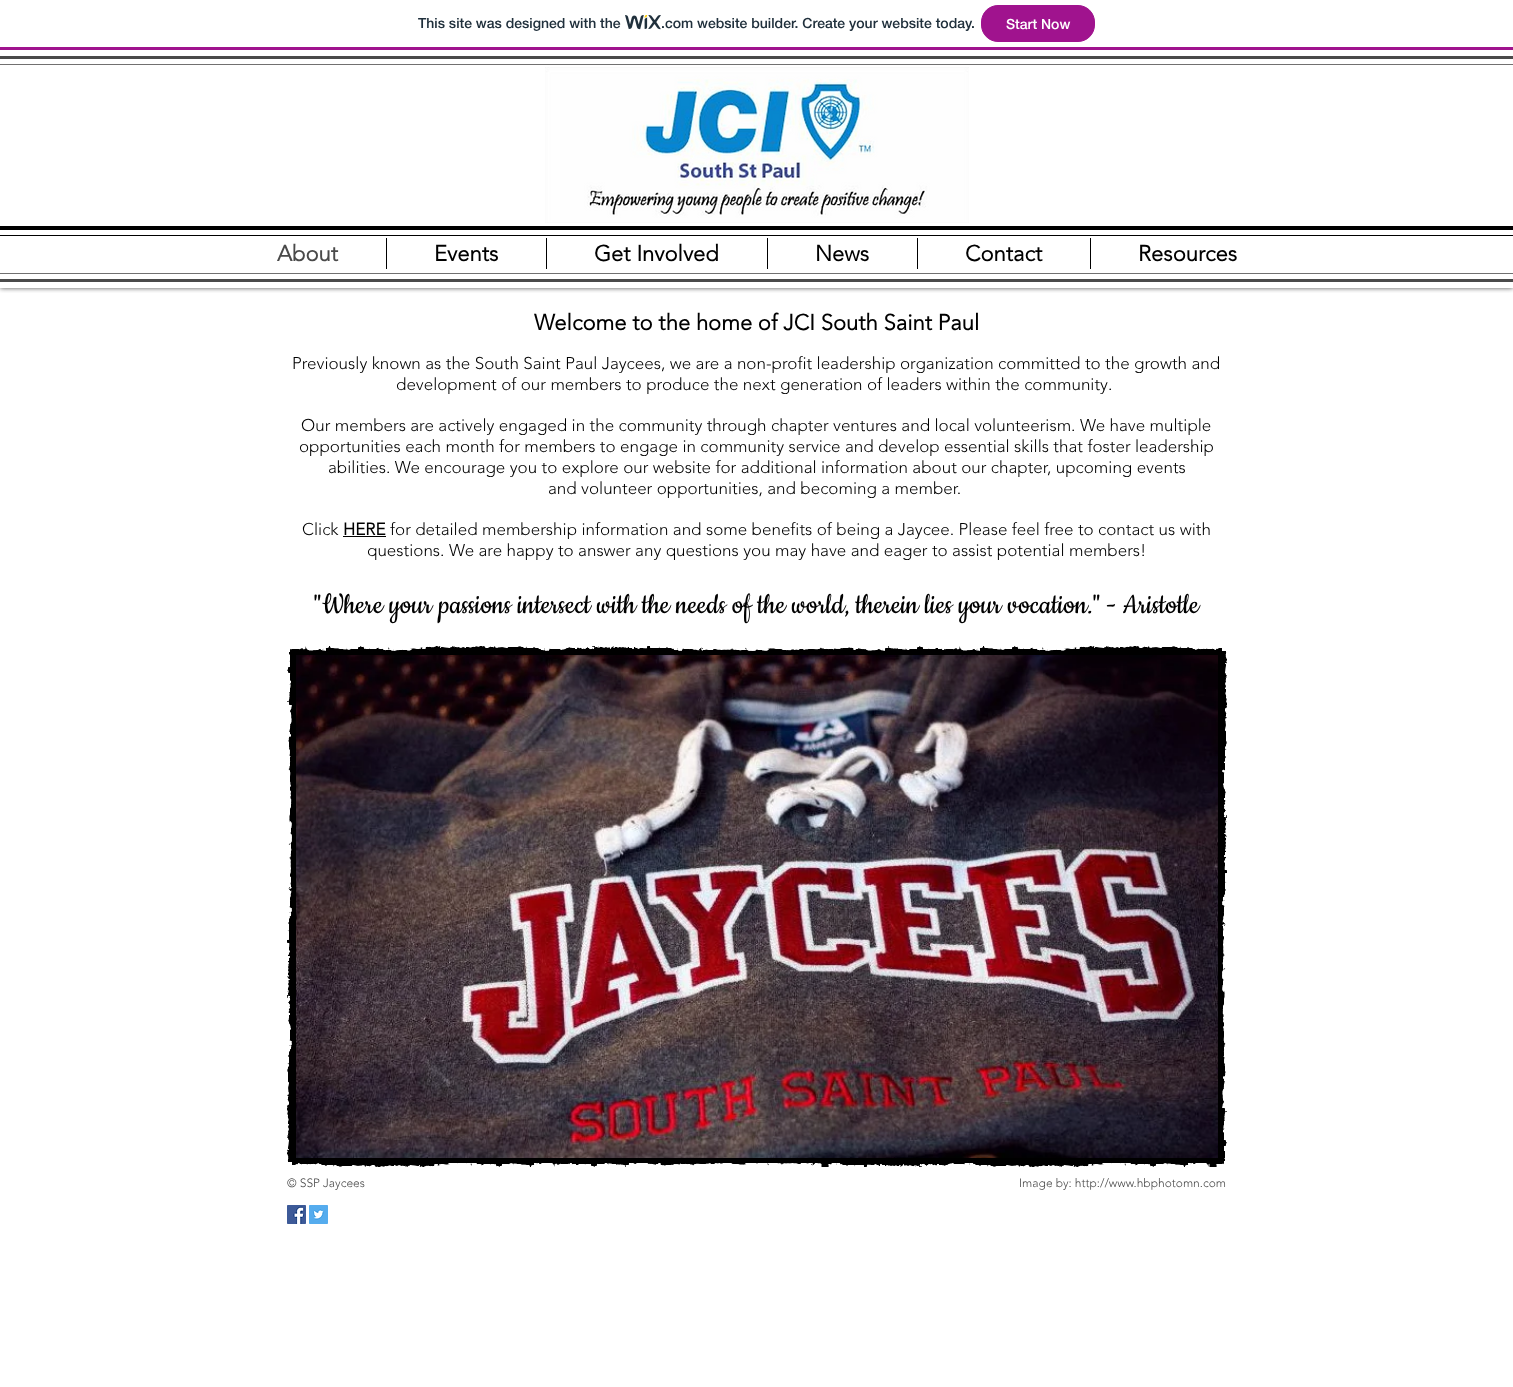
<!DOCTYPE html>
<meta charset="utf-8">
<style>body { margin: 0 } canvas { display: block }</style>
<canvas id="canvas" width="1513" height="1387"></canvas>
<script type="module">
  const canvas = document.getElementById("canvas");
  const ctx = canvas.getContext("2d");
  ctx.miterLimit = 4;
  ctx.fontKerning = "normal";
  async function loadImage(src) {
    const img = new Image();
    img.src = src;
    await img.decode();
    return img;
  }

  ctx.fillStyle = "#ffffff";
  ctx.fillRect(0, 0, 1513, 1387);
  ctx.save();
  ctx.beginPath();
  ctx.rect(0, 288, 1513, 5);
  ctx.clip();
  ctx.fillStyle = "rgba(0, 0, 0, 0.7)";
  ctx.filter = "blur(2.5px)";
  ctx.beginPath();
  ctx.rect(0, 50, 1513, 238);
  ctx.fill();
  ctx.filter = "none";
  ctx.restore();
  ctx.fillRect(0, 45, 1513, 2);
  ctx.fillStyle = "#a0138e";
  ctx.fillRect(0, 47, 1513, 3);
  ctx.font = "500 14px 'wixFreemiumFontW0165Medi'";
  ctx.fillStyle = "#20303c";
  ctx.fillText("This site was designed with the", 418, 28);
  ctx.drawImage(await loadImage("img1.png"), 625, 15, 36, 15);
  ctx.fillText(".com website builder. Create your website today.", 661, 28);
  ctx.fillStyle = "#a0138e";
  ctx.beginPath();
  ctx.roundRect(981.5, 5.5, 113, 36, 16.5);
  ctx.fill();
  ctx.strokeStyle = "#a0138e";
  ctx.stroke();
  ctx.fillStyle = "#ffffff";
  ctx.fillText("Start Now", 1006, 29);
  ctx.fillStyle = "#4a4a4a";
  ctx.fillRect(0, 56, 1513, 3);
  ctx.fillRect(0, 279, 1513, 3);
  ctx.fillStyle = "#717070";
  ctx.fillRect(0, 64, 1513, 1);
  ctx.fillRect(0, 273, 1513, 1);
  ctx.drawImage(await loadImage("img2.png"), 545, 67, 424, 156);
  ctx.fillStyle = "#000000";
  ctx.fillRect(0, 226, 1513, 4);
  ctx.fillRect(0, 235, 1513, 1);
  ctx.font = "bold 22px 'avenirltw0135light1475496'";
  ctx.fillStyle = "#4a4a4a";
  ctx.fillText("About", 277, 261);
  ctx.fillStyle = "#000000";
  ctx.fillRect(386, 238, 1, 31);
  ctx.fillText("Events", 434, 261);
  ctx.fillRect(546, 238, 1, 31);
  ctx.fillText("Get Involved", 594, 261);
  ctx.fillRect(767, 238, 1, 31);
  ctx.fillText("News", 815, 261);
  ctx.fillRect(917, 238, 1, 31);
  ctx.fillText("Contact", 965, 261);
  ctx.fillRect(1090, 238, 1, 31);
  ctx.fillText("Resources", 1138, 261);
  ctx.fillText("Welcome to the home of JCI South Saint Paul", 534, 330);
  ctx.font = "300 17px 'avenirltw0135light1475496'";
  ctx.fillText("Previously known as the South Saint Paul Jaycees, we are a non-profit leadership organization committed to the growth and", 292, 369);
  ctx.fillText("development of our members to produce the next generation of leaders within the community.", 396, 390);
  ctx.fillText("Our members are actively engaged in the community through chapter ventures and local volunteerism. We have multiple", 301, 431);
  ctx.fillText("opportunities each month for members to engage in community service and develop essential skills that foster leadership", 299, 452);
  ctx.fillText("abilities. We encourage you to explore our website for additional information about our chapter, upcoming events", 328, 473);
  ctx.fillText("and volunteer opportunities, and becoming a member.", 548, 494);
  ctx.fillText("Click", 302, 535);
  ctx.font = "bold 17px 'avenirltw0135light1475496'";
  ctx.fillText("HERE", 343, 535);
  ctx.fillRect(343, 536, 43, 1);
  ctx.font = "300 17px 'avenirltw0135light1475496'";
  ctx.fillText("for detailed membership information and some benefits of being a Jaycee. Please feel free to contact us with", 390, 535);
  ctx.fillText("questions. We are happy to answer any questions you may have and eager to assist potential members!", 367, 556);
  ctx.font = "32px Cookie";
  ctx.fillText("\"Where your passions intersect with the needs of the world, therein lies your vocation.\" - Aristotle", 314, 613);
  ctx.drawImage(await loadImage("img5.png"), 292, 651, 935, 516);
  ctx.drawImage(await loadImage("img3.png"), 287, 646, 935, 516);
  ctx.drawImage(await loadImage("img4.png"), 296, 655, 922, 503);
  ctx.font = "300 12px 'avenirltw0135light1475496'";
  ctx.fillStyle = "#4a4a4a";
  ctx.fillText("© SSP Jaycees", 287, 1187);
  ctx.fillText("Image by: http://www.hbphotomn.com", 1019, 1187);
  ctx.drawImage(await loadImage("img6.png"), 287, 1205, 19, 19);
  ctx.drawImage(await loadImage("img7.png"), 309, 1205, 19, 19);
</script>
